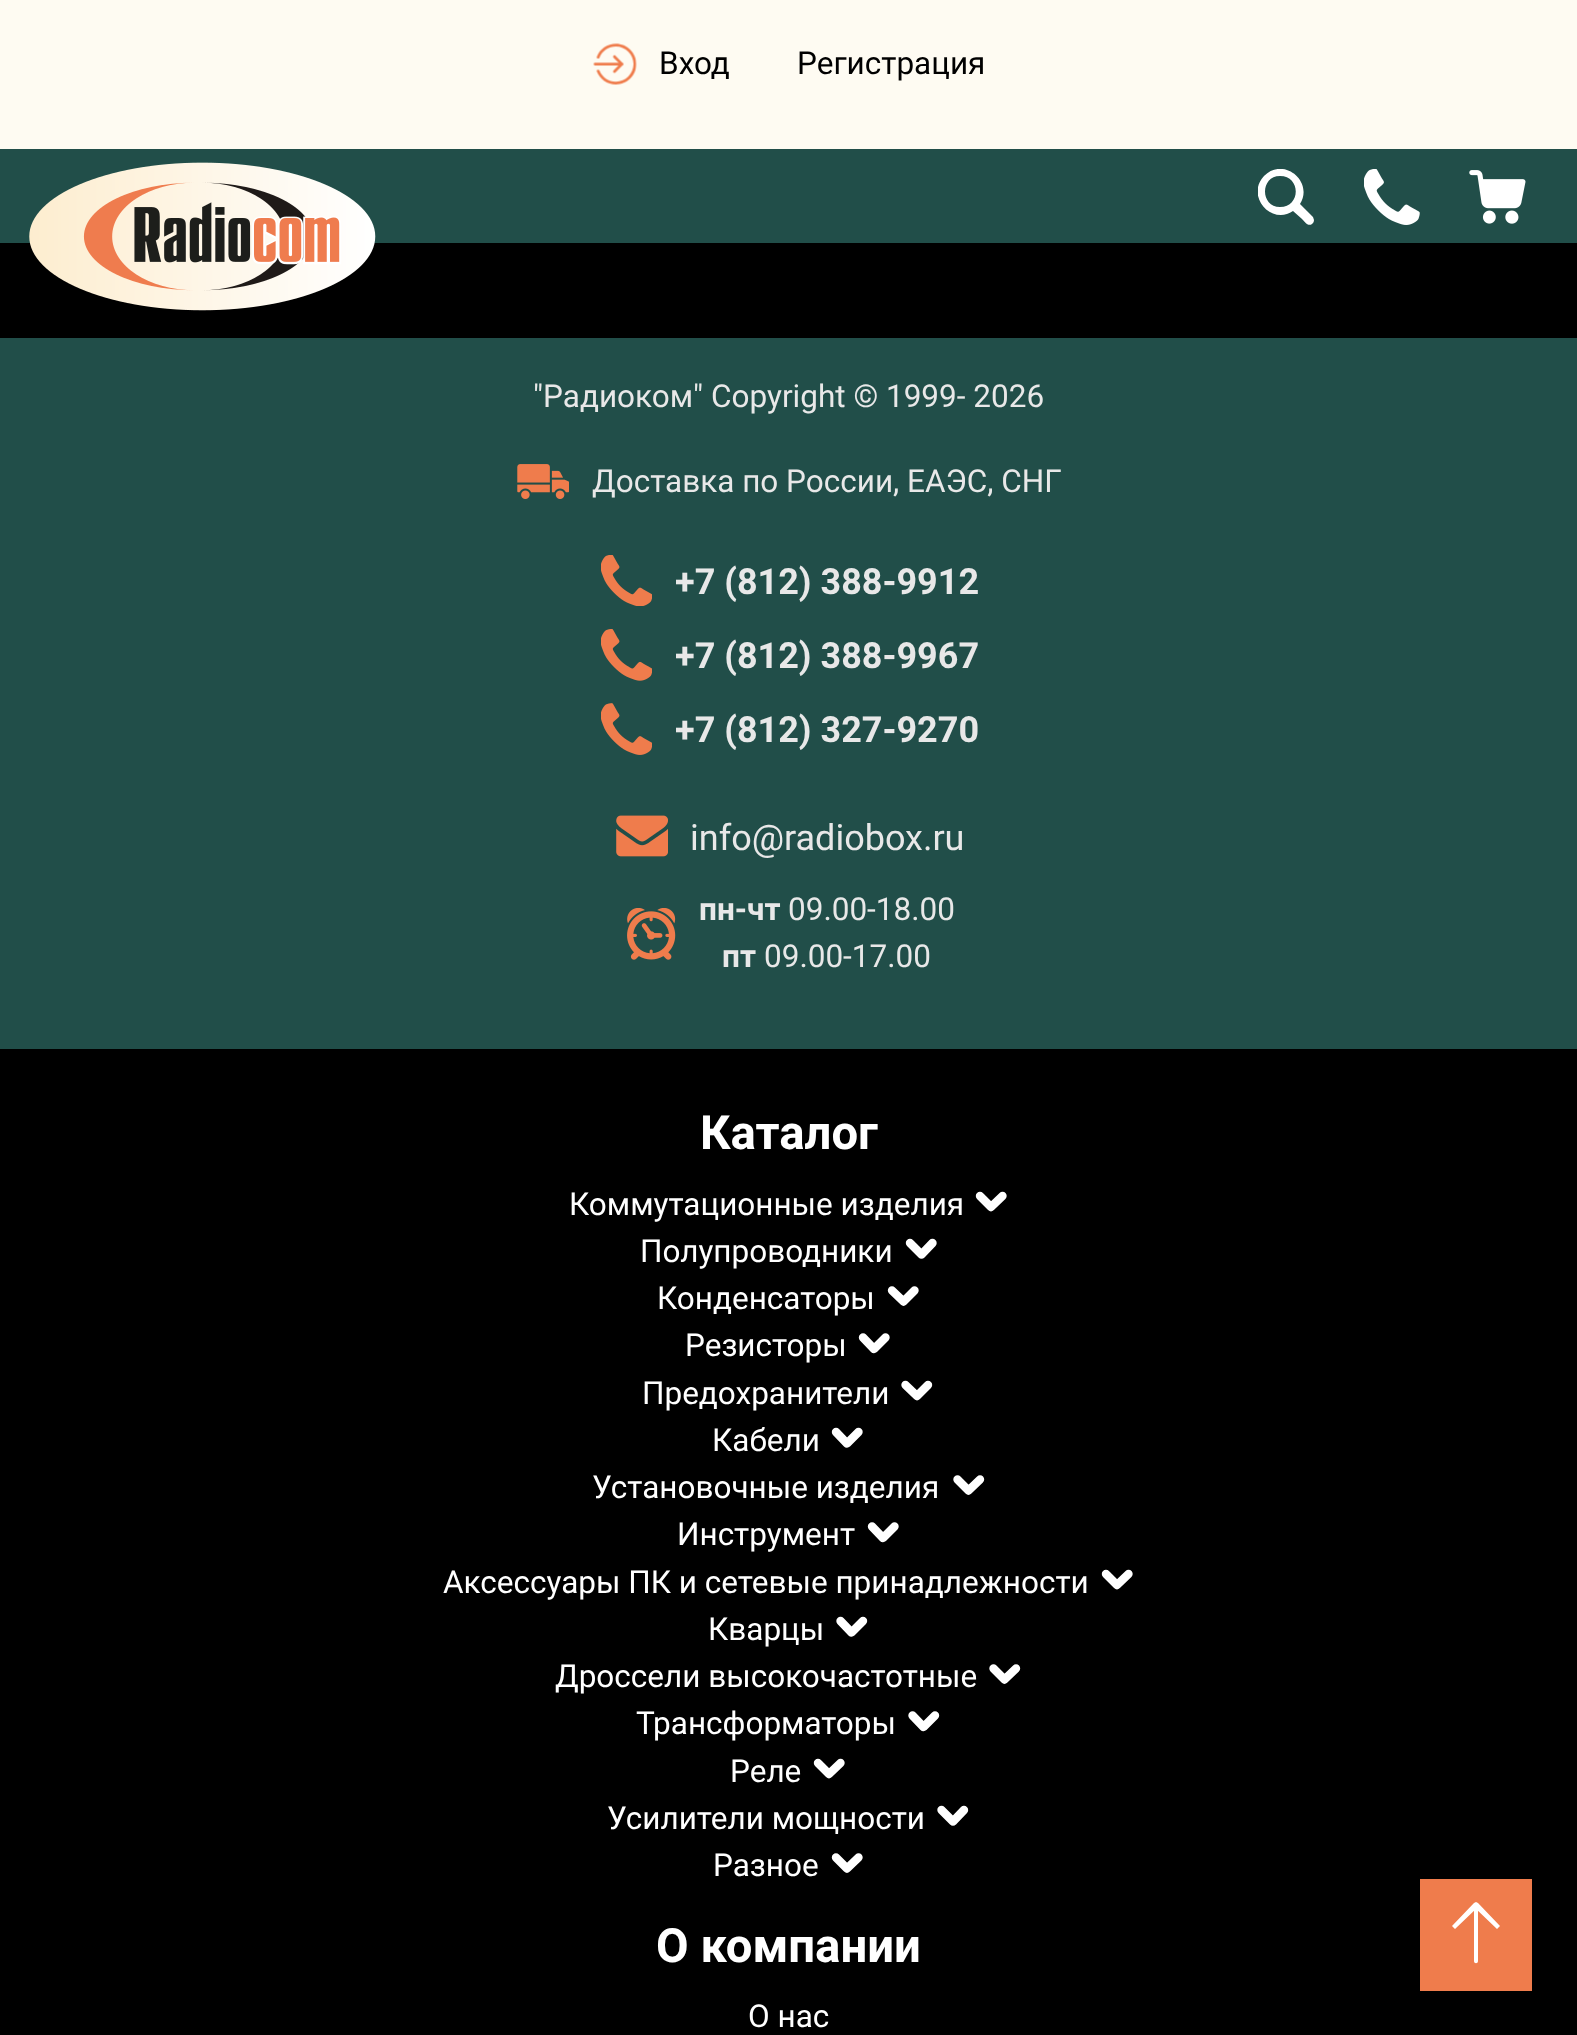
<!DOCTYPE html>
<meta charset="utf-8">
<style>body { margin: 0 } canvas { display: block }</style>
<canvas id="canvas" width="1577" height="2035"></canvas>
<script type="module">
  const canvas = document.getElementById("canvas");
  const ctx = canvas.getContext("2d");
  ctx.miterLimit = 4;
  ctx.fontKerning = "normal";
  async function loadImage(src) {
    const img = new Image();
    img.src = src;
    await img.decode();
    return img;
  }

  ctx.fillStyle = "#214e49";
  ctx.fillRect(0, 0, 1577, 2035);
  ctx.fillStyle = "#fefbf2";
  ctx.fillRect(0, 0, 1577, 149);
  ctx.drawImage(await loadImage("img1.png"), 593, 43, 44, 42);
  ctx.font = "31.5px Roboto";
  ctx.fillStyle = "#000000";
  ctx.fillText("Вход", 659, 74);
  ctx.fillText("Регистрация", 797, 74);
  ctx.fillRect(0, 243, 1577, 95);
  ctx.drawImage(await loadImage("img2.png"), 29, 162, 347, 149);
  ctx.save();
  ctx.beginPath();
  ctx.rect(1258, 169, 56, 56);
  ctx.clip();
  ctx.fillStyle = "#ffffff";
  ctx.beginPath();
  ctx.moveTo(1313, 217);
  ctx.lineTo(1300, 204);
  ctx.bezierCurveTo(1314, 182, 1284, 156, 1264, 176);
  ctx.bezierCurveTo(1245, 196, 1272, 226, 1293, 211);
  ctx.lineTo(1302, 219);
  ctx.bezierCurveTo(1304, 221, 1308, 227, 1312, 224);
  ctx.bezierCurveTo(1313, 223, 1314, 222, 1314, 220);
  ctx.closePath();
  ctx.moveTo(1280, 207);
  ctx.bezierCurveTo(1260, 207, 1260, 176, 1280, 176);
  ctx.bezierCurveTo(1301, 176, 1301, 207, 1280, 207);
  ctx.closePath();
  ctx.fill();
  ctx.restore();
  ctx.drawImage(await loadImage("img3.png"), 1364, 169, 56, 56);
  ctx.drawImage(await loadImage("img4.png"), 1469, 170, 57, 54);
  ctx.fillStyle = "#e8e8e8";
  ctx.fillText("\"Радиоком\" Copyright © 1999- 2026", 533, 407);
  ctx.drawImage(await loadImage("img5.png"), 517, 464, 52, 35);
  ctx.fillText("Доставка по России, ЕАЭС, СНГ", 592, 492);
  ctx.drawImage(await loadImage("img6.png"), 601, 555, 51, 51);
  ctx.font = "bold 36px Roboto";
  ctx.fillText("+7 (812) 388-9912", 675, 594);
  ctx.drawImage(await loadImage("img7.png"), 601, 629, 51, 52);
  ctx.fillText("+7 (812) 388-9967", 675, 668);
  ctx.drawImage(await loadImage("img8.png"), 601, 703, 51, 52);
  ctx.fillText("+7 (812) 327-9270", 675, 742);
  ctx.drawImage(await loadImage("img9.png"), 616, 815, 52, 42);
  ctx.font = "36px Roboto";
  ctx.fillText("info@radiobox.ru", 690, 850);
  ctx.drawImage(await loadImage("img10.png"), 627, 908, 49, 52);
  ctx.font = "bold 31.5px Roboto";
  ctx.fillText("пн-чт", 699, 920);
  ctx.font = "31.5px Roboto";
  ctx.fillText("09.00-18.00", 788, 920);
  ctx.font = "bold 31.5px Roboto";
  ctx.fillText("пт", 722, 967);
  ctx.font = "31.5px Roboto";
  ctx.fillText("09.00-17.00", 764, 967);
  ctx.fillStyle = "#000000";
  ctx.fillRect(0, 1049, 1577, 986);
  ctx.font = "bold 47.25px Roboto";
  ctx.fillStyle = "#ffffff";
  ctx.fillText("Каталог", 700, 1149);
  ctx.font = "31.5px Roboto";
  ctx.fillText("Коммутационные изделия", 569, 1215);
  ctx.beginPath();
  ctx.moveTo(980, 1196);
  ctx.lineTo(991, 1207);
  ctx.lineTo(1002.5, 1196);
  ctx.strokeStyle = "#ffffff";
  ctx.lineWidth = 8.4;
  ctx.lineCap = "round";
  ctx.lineJoin = "round";
  ctx.stroke();
  ctx.fillText("Полупроводники", 640, 1262);
  ctx.beginPath();
  ctx.moveTo(910, 1243);
  ctx.lineTo(921.5, 1254.5);
  ctx.lineTo(932.5, 1243);
  ctx.stroke();
  ctx.fillText("Конденсаторы", 657, 1309);
  ctx.beginPath();
  ctx.moveTo(892, 1290.5);
  ctx.lineTo(903.5, 1301.5);
  ctx.lineTo(914.5, 1290.5);
  ctx.stroke();
  ctx.fillText("Резисторы", 685, 1356);
  ctx.beginPath();
  ctx.moveTo(863, 1337.5);
  ctx.lineTo(874, 1349);
  ctx.lineTo(885.5, 1337.5);
  ctx.stroke();
  ctx.fillText("Предохранители", 642, 1404);
  ctx.beginPath();
  ctx.moveTo(905.5, 1385);
  ctx.lineTo(917, 1396);
  ctx.lineTo(928, 1385);
  ctx.stroke();
  ctx.fillText("Кабели", 712, 1451);
  ctx.beginPath();
  ctx.moveTo(836, 1432);
  ctx.lineTo(847, 1443.5);
  ctx.lineTo(858.5, 1432);
  ctx.stroke();
  ctx.fillText("Установочные изделия", 592, 1498);
  ctx.beginPath();
  ctx.moveTo(957.5, 1479.5);
  ctx.lineTo(968.5, 1490.5);
  ctx.lineTo(980, 1479.5);
  ctx.stroke();
  ctx.fillText("Инструмент", 677, 1545);
  ctx.beginPath();
  ctx.moveTo(872, 1526.5);
  ctx.lineTo(883, 1538);
  ctx.lineTo(894.5, 1526.5);
  ctx.stroke();
  ctx.fillText("Аксессуары ПК и сетевые принадлежности", 443, 1593);
  ctx.beginPath();
  ctx.moveTo(1106, 1574);
  ctx.lineTo(1117, 1585);
  ctx.lineTo(1128.5, 1574);
  ctx.stroke();
  ctx.fillText("Кварцы", 708, 1640);
  ctx.beginPath();
  ctx.moveTo(840.5, 1621);
  ctx.lineTo(851.5, 1632.5);
  ctx.lineTo(863, 1621);
  ctx.stroke();
  ctx.fillText("Дроссели высокочастотные", 555, 1687);
  ctx.beginPath();
  ctx.moveTo(993.5, 1668.5);
  ctx.lineTo(1004.5, 1679.5);
  ctx.lineTo(1016, 1668.5);
  ctx.stroke();
  ctx.fillText("Трансформаторы", 636, 1734);
  ctx.beginPath();
  ctx.moveTo(912.5, 1715.5);
  ctx.lineTo(923.5, 1727);
  ctx.lineTo(935, 1715.5);
  ctx.stroke();
  ctx.fillText("Реле", 730, 1782);
  ctx.beginPath();
  ctx.moveTo(818, 1763);
  ctx.lineTo(829, 1774);
  ctx.lineTo(840.5, 1763);
  ctx.stroke();
  ctx.fillText("Усилители мощности", 607, 1829);
  ctx.beginPath();
  ctx.moveTo(941.5, 1810);
  ctx.lineTo(953, 1821.5);
  ctx.lineTo(964, 1810);
  ctx.stroke();
  ctx.fillText("Разное", 713, 1876);
  ctx.beginPath();
  ctx.moveTo(836, 1857.5);
  ctx.lineTo(847, 1868.5);
  ctx.lineTo(858.5, 1857.5);
  ctx.stroke();
  ctx.font = "bold 47.25px Roboto";
  ctx.fillText("О компании", 656, 1962);
  ctx.font = "31.5px Roboto";
  ctx.fillText("О нас", 748, 2027);
  ctx.fillStyle = "#ef7c4c";
  ctx.fillRect(1420, 1879, 112, 112);
  ctx.fillStyle = "#ffffff";
  ctx.beginPath();
  ctx.moveTo(1476, 1905);
  ctx.lineTo(1474, 1903);
  ctx.lineTo(1476, 1902);
  ctx.lineTo(1478, 1903);
  ctx.closePath();
  ctx.moveTo(1478, 1961);
  ctx.bezierCurveTo(1478, 1964, 1474, 1964, 1474, 1961);
  ctx.closePath();
  ctx.moveTo(1452, 1926);
  ctx.lineTo(1474, 1903);
  ctx.lineTo(1478, 1907);
  ctx.lineTo(1455, 1929);
  ctx.closePath();
  ctx.moveTo(1478, 1903);
  ctx.lineTo(1500, 1926);
  ctx.lineTo(1497, 1929);
  ctx.lineTo(1474, 1907);
  ctx.closePath();
  ctx.moveTo(1478, 1905);
  ctx.lineTo(1478, 1961);
  ctx.lineTo(1474, 1961);
  ctx.lineTo(1474, 1905);
  ctx.closePath();
  ctx.fill();
</script>
